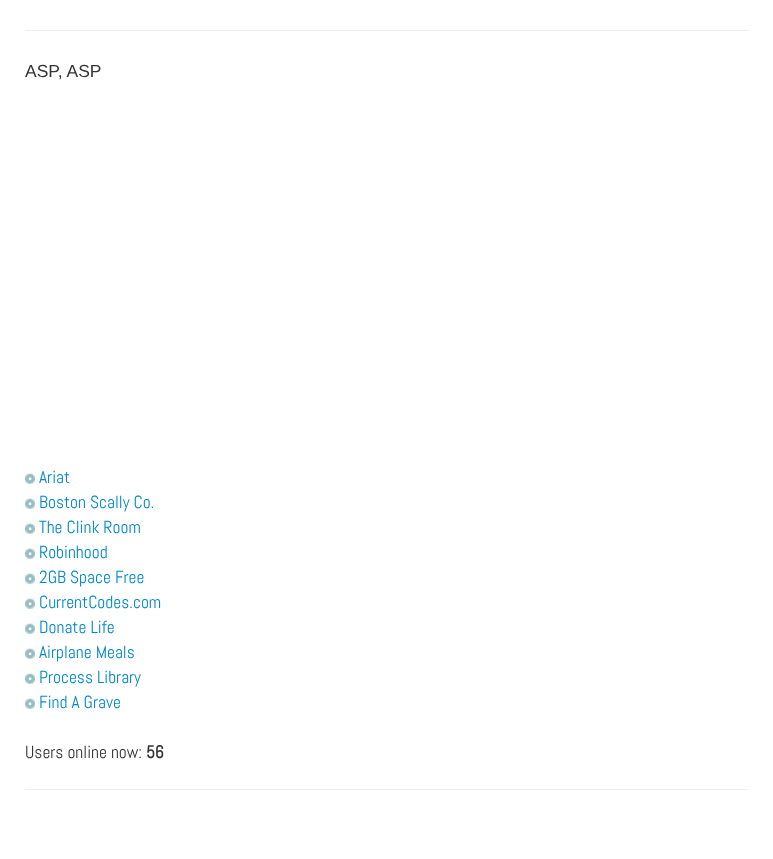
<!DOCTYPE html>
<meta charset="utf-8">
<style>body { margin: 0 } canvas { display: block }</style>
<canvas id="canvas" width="773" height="859"></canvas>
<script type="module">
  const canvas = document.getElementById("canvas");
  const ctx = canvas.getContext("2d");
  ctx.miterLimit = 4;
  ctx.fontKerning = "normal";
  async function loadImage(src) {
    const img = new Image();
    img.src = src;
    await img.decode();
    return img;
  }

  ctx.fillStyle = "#ffffff";
  ctx.fillRect(0, 0, 773, 859);
  ctx.fillStyle = "#eeeeee";
  ctx.fillRect(25, 30, 724, 1);
  ctx.font = "17.5px Liberation Sans";
  ctx.fillStyle = "#333333";
  ctx.fillText("ASP, ASP", 25, 77);
  ctx.drawImage(await loadImage("img1.png"), 25, 473, 10, 11);
  ctx.font = "17.5px Abel";
  ctx.fillStyle = "#0088cc";
  ctx.fillText("Ariat", 39, 483);
  ctx.drawImage(await loadImage("img1.png"), 25, 498, 10, 11);
  ctx.fillText("Boston Scally Co.", 39, 508);
  ctx.drawImage(await loadImage("img1.png"), 25, 523, 10, 11);
  ctx.fillText("The Clink Room", 39, 533);
  ctx.drawImage(await loadImage("img1.png"), 25, 548, 10, 11);
  ctx.fillText("Robinhood", 39, 558);
  ctx.drawImage(await loadImage("img1.png"), 25, 573, 10, 11);
  ctx.fillText("2GB Space Free", 39, 583);
  ctx.drawImage(await loadImage("img1.png"), 25, 598, 10, 11);
  ctx.fillText("CurrentCodes.com", 39, 608);
  ctx.drawImage(await loadImage("img1.png"), 25, 623, 10, 11);
  ctx.fillText("Donate Life", 39, 633);
  ctx.drawImage(await loadImage("img2.png"), 25, 648, 10, 11);
  ctx.fillText("Airplane Meals", 39, 658);
  ctx.drawImage(await loadImage("img1.png"), 25, 673, 10, 11);
  ctx.fillText("Process Library", 39, 683);
  ctx.drawImage(await loadImage("img1.png"), 25, 698, 10, 11);
  ctx.fillText("Find A Grave", 39, 708);
  ctx.fillStyle = "#333333";
  ctx.fillText("Users online now:", 25, 758);
  ctx.font = "bold 17.5px Abel";
  ctx.fillText("56", 146, 758);
  ctx.fillStyle = "#eeeeee";
  ctx.fillRect(25, 789, 724, 1);
</script>
